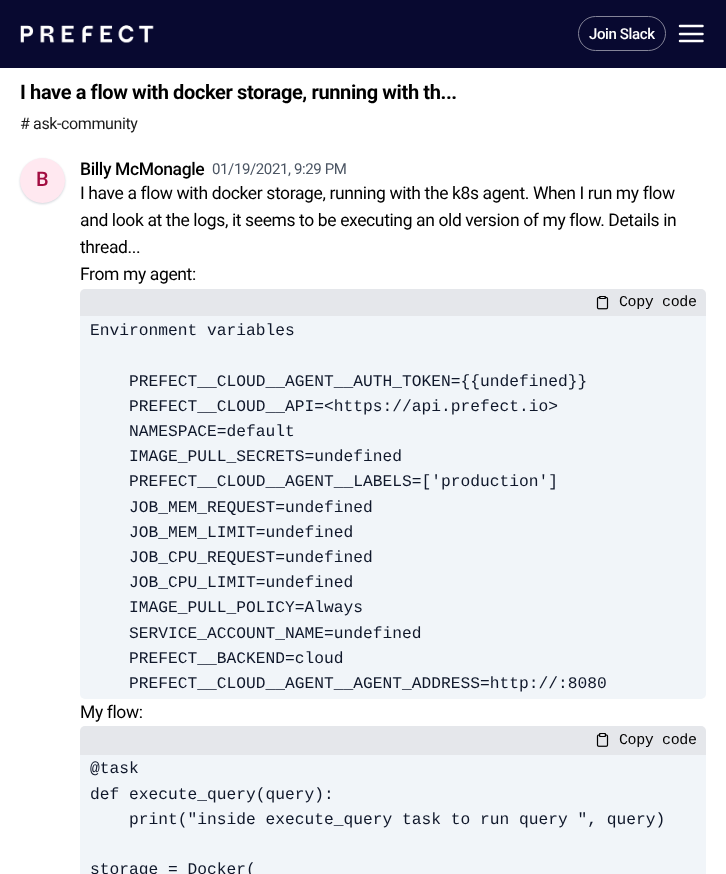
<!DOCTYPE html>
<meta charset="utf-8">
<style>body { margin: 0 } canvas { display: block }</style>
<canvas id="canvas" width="726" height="874"></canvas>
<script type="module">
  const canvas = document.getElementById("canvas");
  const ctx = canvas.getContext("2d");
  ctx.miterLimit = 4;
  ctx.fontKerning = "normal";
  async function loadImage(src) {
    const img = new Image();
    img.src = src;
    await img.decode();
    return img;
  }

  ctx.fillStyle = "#ffffff";
  ctx.fillRect(0, 0, 726, 874);
  ctx.fillStyle = "#080930";
  ctx.fillRect(0, 0, 726, 68);
  ctx.drawImage(await loadImage("img1.png"), 20, 25, 134, 18);
  ctx.beginPath();
  ctx.roundRect(578.5, 16.5, 87, 34, 17);
  ctx.strokeStyle = "#848498";
  ctx.stroke();
  ctx.letterSpacing = "-0.38px";
  ctx.font = "500 15px Roboto";
  ctx.fillStyle = "#ffffff";
  ctx.fillText("Join Slack", 589, 39);
  ctx.beginPath();
  ctx.moveTo(680, 34);
  ctx.lineTo(702.5, 34);
  ctx.moveTo(680, 26);
  ctx.lineTo(702.5, 26);
  ctx.moveTo(680, 41);
  ctx.lineTo(702.5, 41);
  ctx.strokeStyle = "#ffffff";
  ctx.lineWidth = 2.5;
  ctx.lineCap = "round";
  ctx.lineJoin = "round";
  ctx.stroke();
  ctx.font = "bold 20px Roboto";
  ctx.fillStyle = "#000000";
  ctx.fillText("I have a flow with docker storage, running with th...", 20, 99);
  ctx.font = "16px Roboto";
  ctx.fillStyle = "#1a1a1a";
  ctx.fillText("# ask-community", 20, 129);
  ctx.fillStyle = "#d1d5db";
  ctx.filter = "blur(1px)";
  ctx.beginPath();
  ctx.roundRect(20, 159, 45, 45, 22.5);
  ctx.fill();
  ctx.filter = "none";
  ctx.fillStyle = "#ffe8f0";
  ctx.beginPath();
  ctx.arc(42.5, 180.5, 22.5, 0, Math.PI * 2);
  ctx.fill();
  ctx.font = "500 20px Roboto";
  ctx.fillStyle = "#a20d41";
  ctx.fillText("B", 36, 186);
  ctx.font = "500 17.5px Roboto";
  ctx.fillStyle = "#000000";
  ctx.fillText("Billy McMonagle", 80, 175);
  ctx.font = "15px Roboto";
  ctx.fillStyle = "#4b5563";
  ctx.fillText("01/19/2021, 9:29 PM", 212, 174);
  ctx.font = "17.5px Roboto";
  ctx.fillStyle = "#000000";
  ctx.fillText("I have a flow with docker storage, running with the k8s agent. When I run my flow", 80, 199);
  ctx.fillText("and look at the logs, it seems to be executing an old version of my flow. Details in", 80, 226);
  ctx.fillText("thread...", 80, 253);
  ctx.fillText("From my agent:", 80, 280);
  ctx.fillStyle = "#e5e7eb";
  ctx.beginPath();
  ctx.roundRect(80, 289, 626, 27, [5, 5, 0, 0]);
  ctx.fill();
  ctx.drawImage(await loadImage("img2.png"), 596, 296, 13, 14);
  ctx.font = "15px Liberation Mono";
  ctx.fillStyle = "#000000";
  ctx.fillText("Copy code", 619, 306);
  ctx.fillStyle = "#f1f5f9";
  ctx.beginPath();
  ctx.roundRect(80, 316, 626, 383, [0, 0, 5, 5]);
  ctx.fill();
  ctx.letterSpacing = "0px";
  ctx.font = "16.25px Liberation Mono";
  ctx.fillStyle = "#0f172a";
  ctx.fillText("Environment variables", 90, 335);
  ctx.fillText("PREFECT__CLOUD__AGENT__AUTH_TOKEN={{undefined}}", 129, 386);
  ctx.fillText("PREFECT__CLOUD__API=<https://api.prefect.io>", 129, 411);
  ctx.fillText("NAMESPACE=default", 129, 436);
  ctx.fillText("IMAGE_PULL_SECRETS=undefined", 129, 461);
  ctx.fillText("PREFECT__CLOUD__AGENT__LABELS=['production']", 129, 486);
  ctx.fillText("JOB_MEM_REQUEST=undefined", 129, 512);
  ctx.fillText("JOB_MEM_LIMIT=undefined", 129, 537);
  ctx.fillText("JOB_CPU_REQUEST=undefined", 129, 562);
  ctx.fillText("JOB_CPU_LIMIT=undefined", 129, 587);
  ctx.fillText("IMAGE_PULL_POLICY=Always", 129, 612);
  ctx.fillText("SERVICE_ACCOUNT_NAME=undefined", 129, 638);
  ctx.fillText("PREFECT__BACKEND=cloud", 129, 663);
  ctx.fillText("PREFECT__CLOUD__AGENT__AGENT_ADDRESS=http://:8080", 129, 688);
  ctx.letterSpacing = "-0.38px";
  ctx.font = "17.5px Roboto";
  ctx.fillStyle = "#000000";
  ctx.fillText("My flow:", 80, 718);
  ctx.fillStyle = "#e5e7eb";
  ctx.beginPath();
  ctx.roundRect(80, 726, 626, 29, [5, 5, 0, 0]);
  ctx.fill();
  ctx.drawImage(await loadImage("img3.png"), 596, 733, 13, 14);
  ctx.font = "15px Liberation Mono";
  ctx.fillStyle = "#000000";
  ctx.fillText("Copy code", 619, 744);
  ctx.fillStyle = "#f1f5f9";
  ctx.fillRect(80, 755, 626, 119);
  ctx.letterSpacing = "0px";
  ctx.font = "16.25px Liberation Mono";
  ctx.fillStyle = "#0f172a";
  ctx.fillText("@task", 90, 773);
  ctx.fillText("def execute_query(query):", 90, 799);
  ctx.fillText("print(\"inside execute_query task to run query \", query)", 129, 824);
  ctx.fillText("storage = Docker(", 90, 874);
</script>
